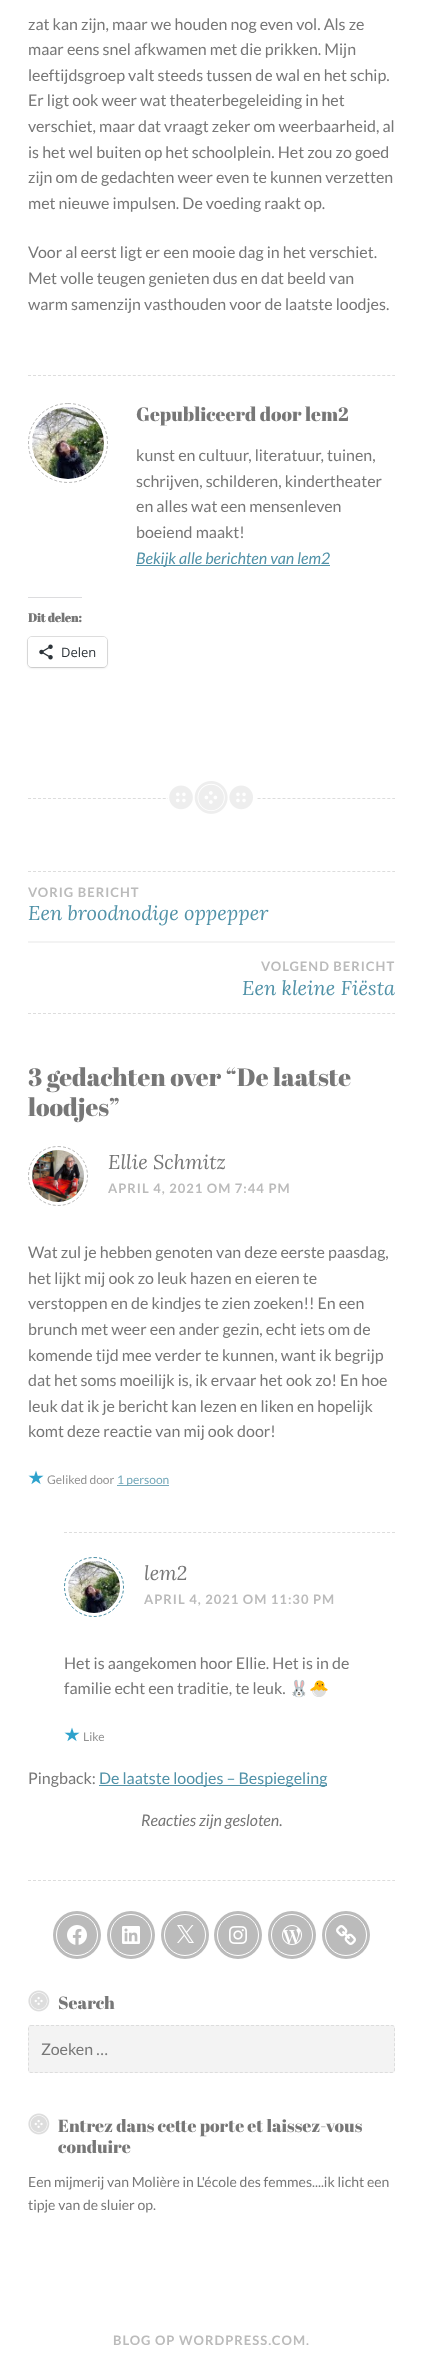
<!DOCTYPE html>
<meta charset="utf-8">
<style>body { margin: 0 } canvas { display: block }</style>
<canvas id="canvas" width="423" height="2379"></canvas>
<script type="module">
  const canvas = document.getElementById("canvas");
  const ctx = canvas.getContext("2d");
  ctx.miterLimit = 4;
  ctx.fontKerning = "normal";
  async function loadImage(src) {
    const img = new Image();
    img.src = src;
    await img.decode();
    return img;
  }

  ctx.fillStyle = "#ffffff";
  ctx.fillRect(0, 0, 423, 2379);
  ctx.beginPath();
  ctx.moveTo(28, 798.5);
  ctx.lineTo(395, 798.5);
  ctx.strokeStyle = "#dddddd";
  ctx.setLineDash([3, 1.99]);
  ctx.stroke();
  ctx.font = "16px Lato";
  ctx.fillStyle = "#777777";
  ctx.fillText("zat kan zijn, maar we houden nog even vol. Als ze", 28, 30);
  ctx.fillText("maar eens snel afkwamen met die prikken. Mijn", 28, 55);
  ctx.fillText("leeftijdsgroep valt steeds tussen de wal en het schip.", 28, 81);
  ctx.fillText("Er ligt ook weer wat theaterbegeleiding in het", 28, 106);
  ctx.fillText("verschiet, maar dat vraagt zeker om weerbaarheid, al", 28, 132);
  ctx.fillText("is het wel buiten op het schoolplein. Het zou zo goed", 28, 158);
  ctx.fillText("zijn om de gedachten weer even te kunnen verzetten", 28, 183);
  ctx.fillText("met nieuwe impulsen. De voeding raakt op.", 28, 209);
  ctx.fillText("Voor al eerst ligt er een mooie dag in het verschiet.", 28, 258);
  ctx.fillText("Met volle teugen genieten dus en dat beeld van", 28, 284);
  ctx.fillText("warm samenzijn vasthouden voor de laatste loodjes.", 28, 310);
  ctx.beginPath();
  ctx.moveTo(28, 375.5);
  ctx.lineTo(395, 375.5);
  ctx.stroke();
  ctx.beginPath();
  ctx.moveTo(68, 403.5);
  ctx.bezierCurveTo(90, 403.5, 107.5, 421, 107.5, 443);
  ctx.bezierCurveTo(107.5, 465, 90, 482.5, 68, 482.5);
  ctx.bezierCurveTo(46, 482.5, 28.5, 465, 28.5, 443);
  ctx.bezierCurveTo(28.5, 421, 46, 403.5, 68, 403.5);
  ctx.closePath();
  ctx.strokeStyle = "#bbbbbb";
  ctx.setLineDash([3, 2]);
  ctx.stroke();
  ctx.drawImage(await loadImage("img1.png"), 32, 407, 72, 72);
  ctx.font = "19.25px Abril Fatface";
  ctx.fillText("Gepubliceerd door lem2", 136, 421);
  ctx.font = "16px Lato";
  ctx.fillText("kunst en cultuur, literatuur, tuinen,", 136, 461);
  ctx.fillText("schrijven, schilderen, kindertheater", 136, 487);
  ctx.fillText("en alles wat een mensenleven", 136, 512);
  ctx.fillText("boeiend maakt!", 136, 538);
  ctx.fillStyle = "#5192a8";
  ctx.fillRect(136, 565, 194, 1);
  ctx.font = "italic 16px Lato";
  ctx.fillText("Bekijk alle berichten van lem2", 136, 564);
  ctx.fillStyle = "#dcdcde";
  ctx.fillRect(28, 597, 54, 1);
  ctx.font = "bold 12px Abril Fatface";
  ctx.fillStyle = "#777777";
  ctx.fillText("Dit delen:", 28, 622);
  ctx.beginPath();
  ctx.roundRect(27.5, 636.5, 80, 31, 4.5);
  ctx.strokeStyle = "#e0e0e0";
  ctx.setLineDash([]);
  ctx.stroke();
  ctx.fillStyle = "rgba(0, 0, 0, 0.12)";
  ctx.filter = "blur(1px)";
  ctx.beginPath();
  ctx.roundRect(28, 638, 79, 30, 4);
  ctx.fill();
  ctx.filter = "none";
  ctx.fillStyle = "#ffffff";
  ctx.beginPath();
  ctx.roundRect(28, 637, 79, 30, 4);
  ctx.fill();
  ctx.drawImage(await loadImage("img2.png"), 39, 644, 14, 16);
  ctx.font = "13px Open Sans";
  ctx.fillStyle = "#2c3338";
  ctx.fillText("Delen", 61, 657);
  ctx.fillStyle = "#ffffff";
  ctx.fillRect(168, 798, 88, 1);
  ctx.drawImage(await loadImage("img3.png"), 169, 781, 84, 33);
  ctx.beginPath();
  ctx.moveTo(28, 871.5);
  ctx.lineTo(395, 871.5);
  ctx.strokeStyle = "#dddddd";
  ctx.setLineDash([3, 1.99]);
  ctx.stroke();
  ctx.beginPath();
  ctx.moveTo(28, 1013.5);
  ctx.lineTo(395, 1013.5);
  ctx.stroke();
  ctx.fillStyle = "#f3f3f3";
  ctx.fillRect(28, 941, 367, 2);
  ctx.letterSpacing = "1px";
  ctx.font = "bold 13px Lato";
  ctx.fillStyle = "#bbbbbb";
  ctx.fillText("VORIG BERICHT", 28, 897);
  ctx.letterSpacing = "0px";
  ctx.font = "italic 20px Lora";
  ctx.fillStyle = "#5192a8";
  ctx.fillText("Een broodnodige oppepper", 28, 920);
  ctx.letterSpacing = "1px";
  ctx.font = "bold 13px Lato";
  ctx.fillStyle = "#bbbbbb";
  ctx.fillText("VOLGEND BERICHT", 261, 971);
  ctx.letterSpacing = "0px";
  ctx.font = "italic 20px Lora";
  ctx.fillStyle = "#5192a8";
  ctx.fillText("Een kleine Fiësta", 242, 995);
  ctx.font = "25px Abril Fatface";
  ctx.fillStyle = "#777777";
  ctx.fillText("3 gedachten over “De laatste", 28, 1086);
  ctx.fillText("loodjes”", 28, 1116);
  ctx.beginPath();
  ctx.moveTo(58, 1146.5);
  ctx.bezierCurveTo(74.5, 1146.5, 87.5, 1159.5, 87.5, 1176);
  ctx.bezierCurveTo(87.5, 1192.5, 74.5, 1205.5, 58, 1205.5);
  ctx.bezierCurveTo(41.5, 1205.5, 28.5, 1192.5, 28.5, 1176);
  ctx.bezierCurveTo(28.5, 1159.5, 41.5, 1146.5, 58, 1146.5);
  ctx.closePath();
  ctx.strokeStyle = "#bbbbbb";
  ctx.setLineDash([3, 2]);
  ctx.stroke();
  ctx.drawImage(await loadImage("img4.png"), 32, 1150, 52, 52);
  ctx.font = "italic 20px Lora";
  ctx.fillText("Ellie Schmitz", 108, 1169);
  ctx.letterSpacing = "1px";
  ctx.font = "bold 13px Lato";
  ctx.fillStyle = "#bbbbbb";
  ctx.fillText("APRIL 4, 2021 OM 7:44 PM", 108, 1193);
  ctx.letterSpacing = "0px";
  ctx.font = "16px Lato";
  ctx.fillStyle = "#777777";
  ctx.fillText("Wat zul je hebben genoten van deze eerste paasdag,", 28, 1258);
  ctx.fillText("het lijkt mij ook zo leuk hazen en eieren te", 28, 1284);
  ctx.fillText("verstoppen en de kindjes te zien zoeken!! En een", 28, 1309);
  ctx.fillText("brunch met weer een ander gezin, echt iets om de", 28, 1335);
  ctx.fillText("komende tijd mee verder te kunnen, want ik begrijp", 28, 1361);
  ctx.fillText("dat het soms moeilijk is, ik ervaar het ook zo! En hoe", 28, 1386);
  ctx.fillText("leuk dat ik je bericht kan lezen en liken en hopelijk", 28, 1412);
  ctx.fillText("komt deze reactie van mij ook door!", 28, 1437);
  ctx.drawImage(await loadImage("img5.png"), 28, 1470, 16, 15);
  ctx.font = "12px Lato";
  ctx.fillStyle = "#929292";
  ctx.fillText("Geliked door", 47, 1484);
  ctx.fillStyle = "#74a8b9";
  ctx.fillRect(117, 1485, 52, 1);
  ctx.fillText("1 persoon", 117, 1484);
  ctx.beginPath();
  ctx.moveTo(64, 1532.5);
  ctx.lineTo(395, 1532.5);
  ctx.strokeStyle = "#dddddd";
  ctx.setLineDash([3, 1.97]);
  ctx.stroke();
  ctx.beginPath();
  ctx.moveTo(94, 1557.5);
  ctx.bezierCurveTo(110.5, 1557.5, 123.5, 1570.5, 123.5, 1587);
  ctx.bezierCurveTo(123.5, 1603.5, 110.5, 1616.5, 94, 1616.5);
  ctx.bezierCurveTo(77.5, 1616.5, 64.5, 1603.5, 64.5, 1587);
  ctx.bezierCurveTo(64.5, 1570.5, 77.5, 1557.5, 94, 1557.5);
  ctx.closePath();
  ctx.strokeStyle = "#5192a8";
  ctx.setLineDash([3, 2]);
  ctx.stroke();
  ctx.drawImage(await loadImage("img6.png"), 68, 1561, 52, 52);
  ctx.font = "italic 20px Lora";
  ctx.fillStyle = "#777777";
  ctx.fillText("lem2", 144, 1580);
  ctx.letterSpacing = "1px";
  ctx.font = "bold 13px Lato";
  ctx.fillStyle = "#bbbbbb";
  ctx.fillText("APRIL 4, 2021 OM 11:30 PM", 144, 1604);
  ctx.letterSpacing = "0px";
  ctx.font = "16px Lato";
  ctx.fillStyle = "#777777";
  ctx.fillText("Het is aangekomen hoor Ellie. Het is in de", 64, 1669);
  ctx.fillText("familie echt een traditie, te leuk.", 64, 1694);
  ctx.font = "16px Noto Color Emoji";
  ctx.fillText("🐰🐣", 289, 1694);
  ctx.drawImage(await loadImage("img5.png"), 64, 1727, 16, 15);
  ctx.font = "12px Lato";
  ctx.fillStyle = "#929292";
  ctx.fillText("Like", 83, 1741);
  ctx.font = "16px Lato";
  ctx.fillStyle = "#777777";
  ctx.fillText("Pingback:", 28, 1784);
  ctx.fillStyle = "#5192a8";
  ctx.fillRect(99, 1785, 228, 1);
  ctx.fillText("De laatste loodjes – Bespiegeling", 99, 1784);
  ctx.font = "italic 16px Lato";
  ctx.fillStyle = "#777777";
  ctx.fillText("Reacties zijn gesloten.", 141, 1826);
  ctx.beginPath();
  ctx.moveTo(28, 1880.5);
  ctx.lineTo(395, 1880.5);
  ctx.strokeStyle = "#dddddd";
  ctx.setLineDash([3, 1.99]);
  ctx.stroke();
  ctx.fillStyle = "#bbbbbb";
  ctx.beginPath();
  ctx.arc(77, 1935, 24, 0, Math.PI * 2);
  ctx.fill();
  ctx.drawImage(await loadImage("img7.png"), 67, 1925, 20, 20);
  ctx.beginPath();
  ctx.arc(77, 1935, 20.5, 0, Math.PI * 2);
  ctx.strokeStyle = "#ffffff";
  ctx.setLineDash([]);
  ctx.stroke();
  ctx.beginPath();
  ctx.arc(131, 1935, 24, 0, Math.PI * 2);
  ctx.fill();
  ctx.drawImage(await loadImage("img8.png"), 122, 1926, 18, 18);
  ctx.beginPath();
  ctx.arc(131, 1935, 20.5, 0, Math.PI * 2);
  ctx.stroke();
  ctx.beginPath();
  ctx.arc(185, 1935, 24, 0, Math.PI * 2);
  ctx.fill();
  ctx.drawImage(await loadImage("img9.png"), 177, 1925, 17, 18);
  ctx.beginPath();
  ctx.arc(185, 1935, 20.5, 0, Math.PI * 2);
  ctx.stroke();
  ctx.beginPath();
  ctx.arc(238, 1935, 24, 0, Math.PI * 2);
  ctx.fill();
  ctx.drawImage(await loadImage("img10.png"), 229, 1926, 18, 18);
  ctx.beginPath();
  ctx.arc(238, 1935, 20.5, 0, Math.PI * 2);
  ctx.stroke();
  ctx.beginPath();
  ctx.arc(292, 1935, 24, 0, Math.PI * 2);
  ctx.fill();
  ctx.drawImage(await loadImage("img11.png"), 282, 1925, 20, 20);
  ctx.beginPath();
  ctx.arc(292, 1935, 20.5, 0, Math.PI * 2);
  ctx.stroke();
  ctx.beginPath();
  ctx.arc(346, 1935, 24, 0, Math.PI * 2);
  ctx.fill();
  ctx.drawImage(await loadImage("img12.png"), 336, 1925, 20, 20);
  ctx.beginPath();
  ctx.arc(346, 1935, 20.5, 0, Math.PI * 2);
  ctx.stroke();
  ctx.drawImage(await loadImage("img13.png"), 28, 1990, 22, 22);
  ctx.font = "17.5px Abril Fatface";
  ctx.fillStyle = "#777777";
  ctx.fillText("Search", 58, 2009);
  ctx.fillStyle = "#f3f3f3";
  ctx.beginPath();
  ctx.roundRect(28, 2025, 367, 48, 3);
  ctx.fill();
  ctx.beginPath();
  ctx.moveTo(31, 2025.5);
  ctx.lineTo(392, 2025.5);
  ctx.bezierCurveTo(393.5, 2025.5, 394.5, 2026.5, 394.5, 2028);
  ctx.lineTo(394.5, 2070);
  ctx.bezierCurveTo(394.5, 2071.5, 393.5, 2072.5, 392, 2072.5);
  ctx.lineTo(31, 2072.5);
  ctx.bezierCurveTo(29.5, 2072.5, 28.5, 2071.5, 28.5, 2070);
  ctx.lineTo(28.5, 2028);
  ctx.bezierCurveTo(28.5, 2026.5, 29.5, 2025.5, 31, 2025.5);
  ctx.closePath();
  ctx.strokeStyle = "#dddddd";
  ctx.setLineDash([3, 2]);
  ctx.stroke();
  ctx.font = "16px Lato";
  ctx.fillStyle = "#777777";
  ctx.fillText("Zoeken …", 41, 2055);
  ctx.drawImage(await loadImage("img13.png"), 28, 2113, 22, 22);
  ctx.font = "17.5px Abril Fatface";
  ctx.fillText("Entrez dans cette porte et laissez-vous", 58, 2132);
  ctx.fillText("conduire", 58, 2153);
  ctx.font = "14px Lato";
  ctx.fillText("Een mijmerij van Molière in L'école des femmes....ik licht een", 28, 2187);
  ctx.fillText("tipje van de sluier op.", 28, 2210);
  ctx.letterSpacing = "1px";
  ctx.font = "bold 13px Lato";
  ctx.fillStyle = "#bbbbbb";
  ctx.fillText("BLOG OP WORDPRESS.COM.", 113, 2345);
</script>
